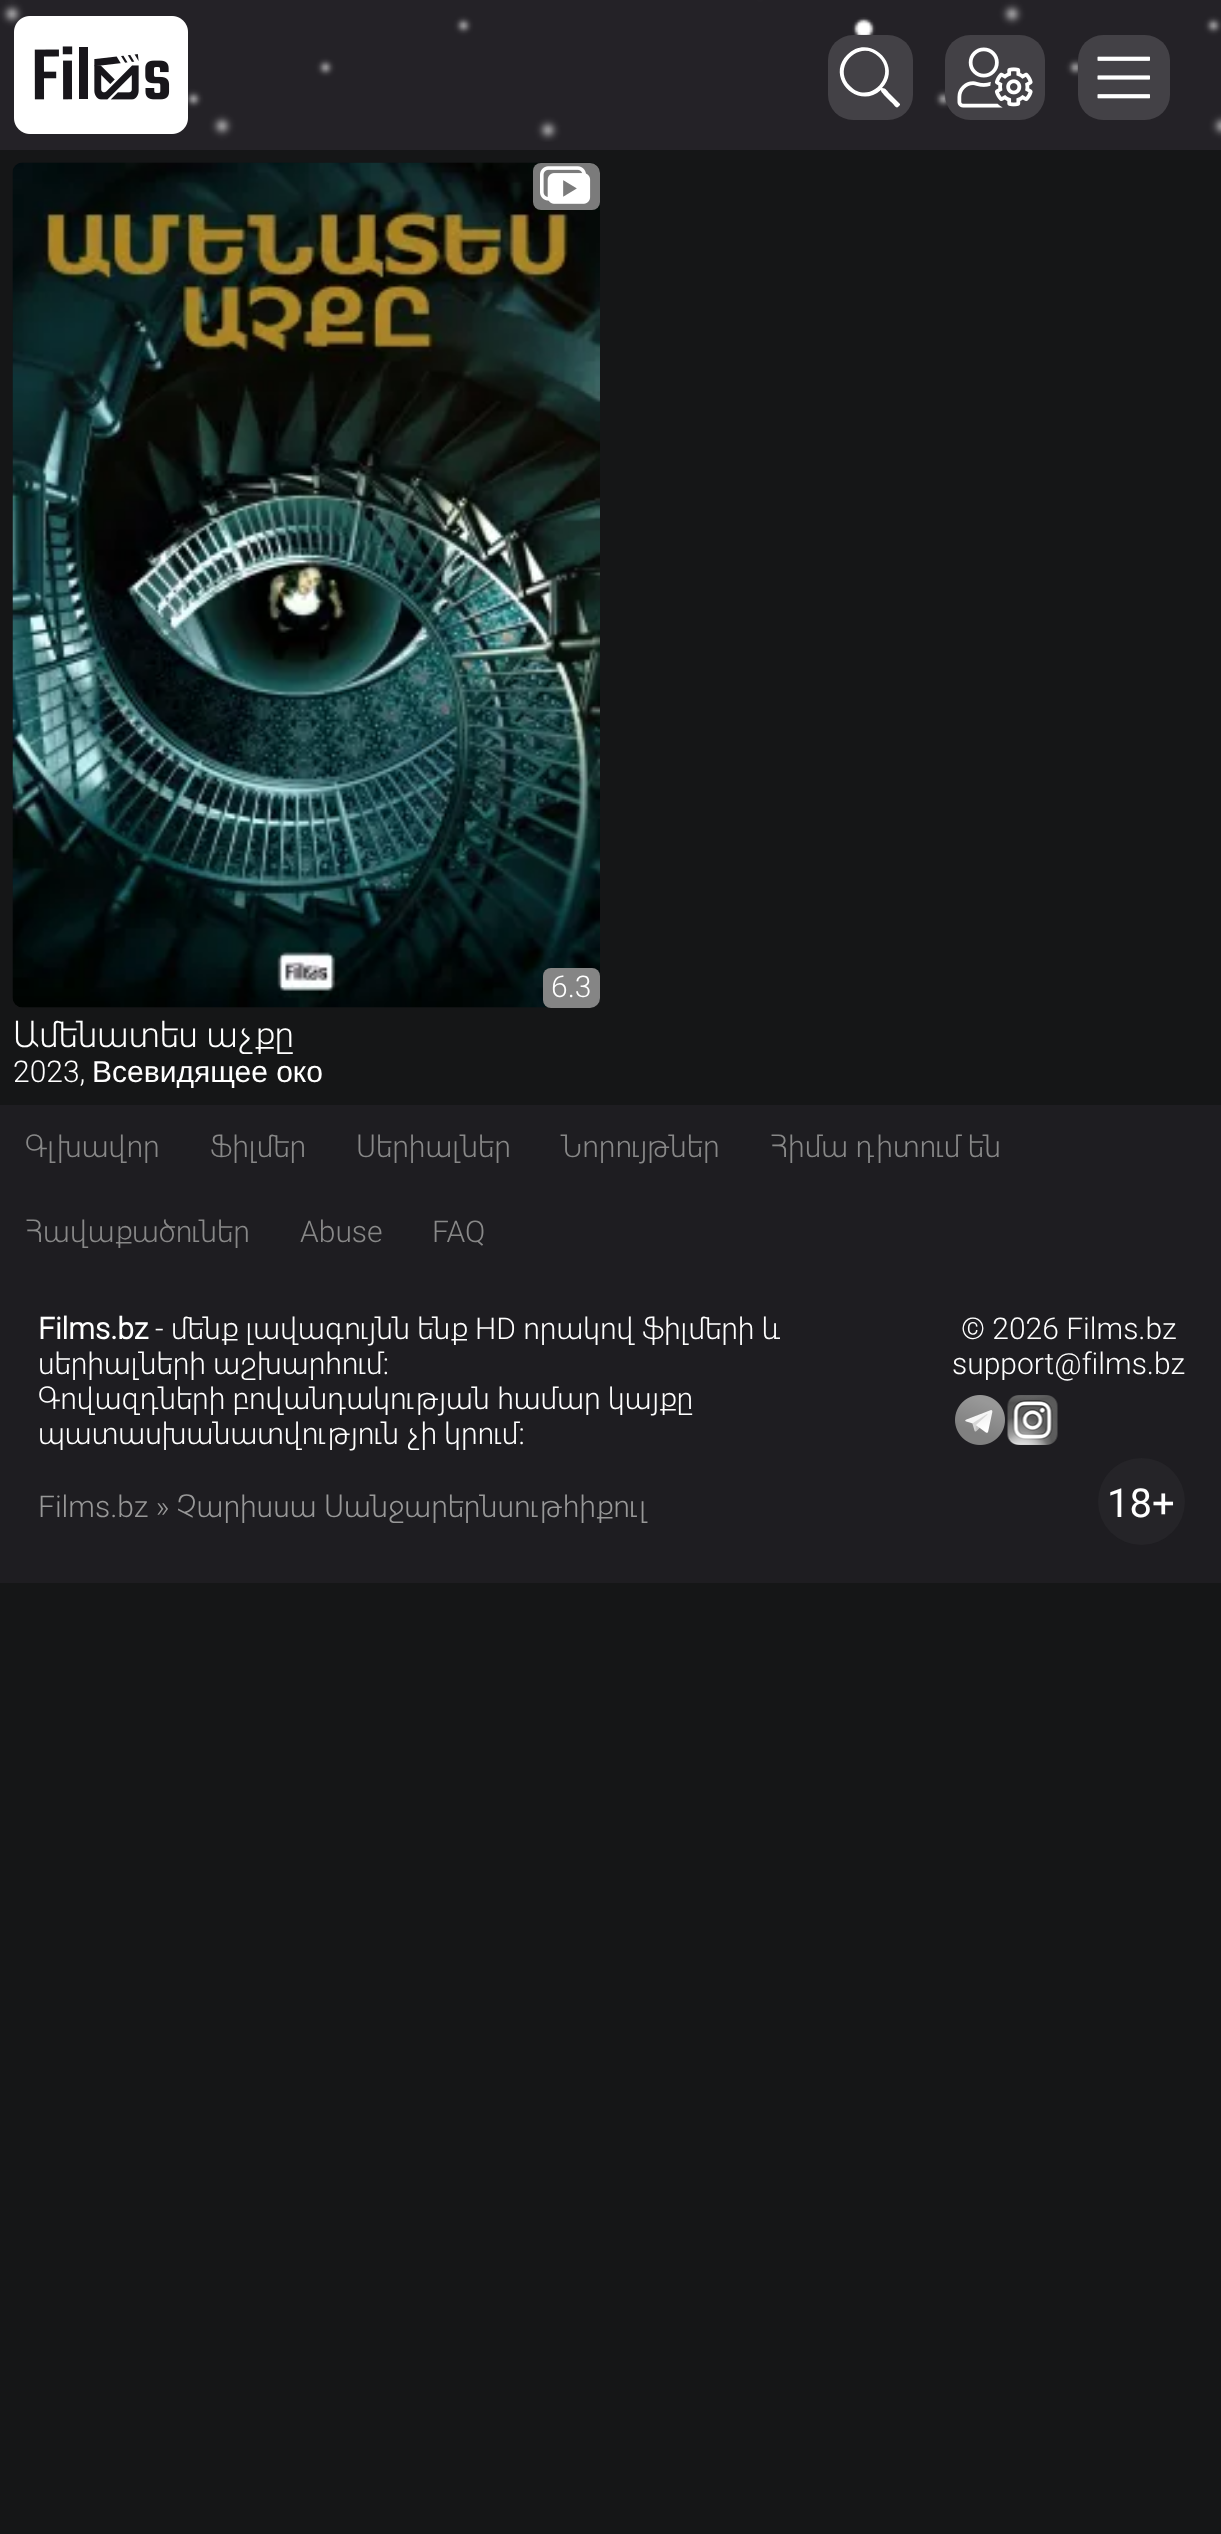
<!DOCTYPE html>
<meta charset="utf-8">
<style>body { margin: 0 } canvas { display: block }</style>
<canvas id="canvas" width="1221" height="2534"></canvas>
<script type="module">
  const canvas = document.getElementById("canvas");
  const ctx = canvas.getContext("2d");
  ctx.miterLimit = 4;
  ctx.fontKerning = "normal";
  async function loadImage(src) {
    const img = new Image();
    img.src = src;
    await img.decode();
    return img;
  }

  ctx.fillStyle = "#151617";
  ctx.fillRect(0, 0, 1221, 2534);
  ctx.fillStyle = "#242227";
  ctx.fillRect(0, 0, 1221, 150);
  ctx.drawImage(await loadImage("img1.png"), 0, 0, 1221, 142);
  ctx.drawImage(await loadImage("img2.png"), 14, 16, 174, 118);
  ctx.fillStyle = "#434146";
  ctx.beginPath();
  ctx.roundRect(828, 35, 85, 85, 25);
  ctx.fill();
  ctx.fillStyle = "#ffffff";
  ctx.beginPath();
  ctx.moveTo(900, 104);
  ctx.lineTo(900, 105);
  ctx.lineTo(898, 107);
  ctx.bezierCurveTo(896, 109, 893, 103, 891, 102);
  ctx.lineTo(884, 95);
  ctx.bezierCurveTo(882, 92, 881, 92, 881, 90);
  ctx.bezierCurveTo(858, 111, 825, 77, 847, 55);
  ctx.bezierCurveTo(869, 32, 904, 65, 882, 88);
  ctx.bezierCurveTo(886, 88, 887, 91, 890, 94);
  ctx.closePath();
  ctx.moveTo(850, 86);
  ctx.bezierCurveTo(869, 106, 898, 76, 879, 57);
  ctx.bezierCurveTo(860, 38, 831, 67, 850, 86);
  ctx.closePath();
  ctx.fill();
  ctx.fillStyle = "#434146";
  ctx.beginPath();
  ctx.roundRect(945, 35, 100, 85, 25);
  ctx.fill();
  ctx.drawImage(await loadImage("img3.png"), 957, 47, 76, 61);
  ctx.beginPath();
  ctx.roundRect(1078, 35, 92, 85, 25);
  ctx.fill();
  ctx.drawImage(await loadImage("img4.png"), 1097, 56, 53, 43);
  ctx.drawImage(await loadImage("img5.png"), 12, 162, 588, 846);
  ctx.fillStyle = "#7b7b7b";
  ctx.beginPath();
  ctx.roundRect(533, 163, 67, 47, [8, 10, 8, 8]);
  ctx.fill();
  ctx.drawImage(await loadImage("img6.png"), 540, 166, 51, 38);
  ctx.fillStyle = "#858585";
  ctx.beginPath();
  ctx.roundRect(543, 968, 57, 40, [8, 8, 10, 8]);
  ctx.fill();
  ctx.font = "300 30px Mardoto";
  ctx.fillStyle = "#ffffff";
  ctx.fillText("6.3", 551, 997);
  ctx.font = "300 35px Mardoto";
  ctx.fillText("Ամենատես աչքը", 13, 1047);
  ctx.font = "300 30px Mardoto";
  ctx.fillText("2023,", 13, 1082);
  ctx.font = "30px Liberation Sans";
  ctx.fillText("Всевидящее око", 92, 1082);
  ctx.fillStyle = "#1e1d21";
  ctx.fillRect(0, 1105, 1221, 478);
  ctx.font = "300 30px Mardoto";
  ctx.fillStyle = "#888888";
  ctx.fillText("Գլխավոր", 25, 1157);
  ctx.fillText("Ֆիլմեր", 210, 1157);
  ctx.fillText("Սերիալներ", 356, 1157);
  ctx.fillText("Նորույթներ", 560, 1157);
  ctx.fillText("Հիմա դիտում են", 770, 1157);
  ctx.fillText("Հավաքածուներ", 25, 1242);
  ctx.fillText("Abuse", 300, 1242);
  ctx.fillText("FAQ", 432, 1242);
  ctx.font = "bold 30px Mardoto";
  ctx.fillStyle = "#ffffff";
  ctx.fillText("Films.bz", 38, 1339);
  ctx.font = "300 30px Mardoto";
  ctx.fillText("- մենք լավագույնն ենք HD որակով ֆիլմերի և", 155, 1339);
  ctx.fillText("սերիալների աշխարհում:", 38, 1374);
  ctx.fillText("Գովազդների բովանդակության համար կայքը", 38, 1409);
  ctx.fillText("պատասխանատվություն չի կրում:", 38, 1444);
  ctx.fillText("© 2026 Films.bz", 961, 1339);
  ctx.fillText("support@films.bz", 952, 1374);
  ctx.drawImage(await loadImage("img7.png"), 955, 1395, 50, 50);
  ctx.drawImage(await loadImage("img8.png"), 1007, 1395, 51, 50);
  ctx.fillStyle = "#252428";
  ctx.beginPath();
  ctx.arc(1141.5, 1501.5, 43.5, 0, Math.PI * 2);
  ctx.fill();
  ctx.font = "40px Roboto";
  ctx.fillStyle = "#ffffff";
  ctx.fillText("18+", 1107, 1517);
  ctx.font = "300 30px Mardoto";
  ctx.fillStyle = "#989898";
  ctx.fillText("Films.bz » Չարիսսա Սանջարերնսութհիքուլ", 38, 1517);
</script>
